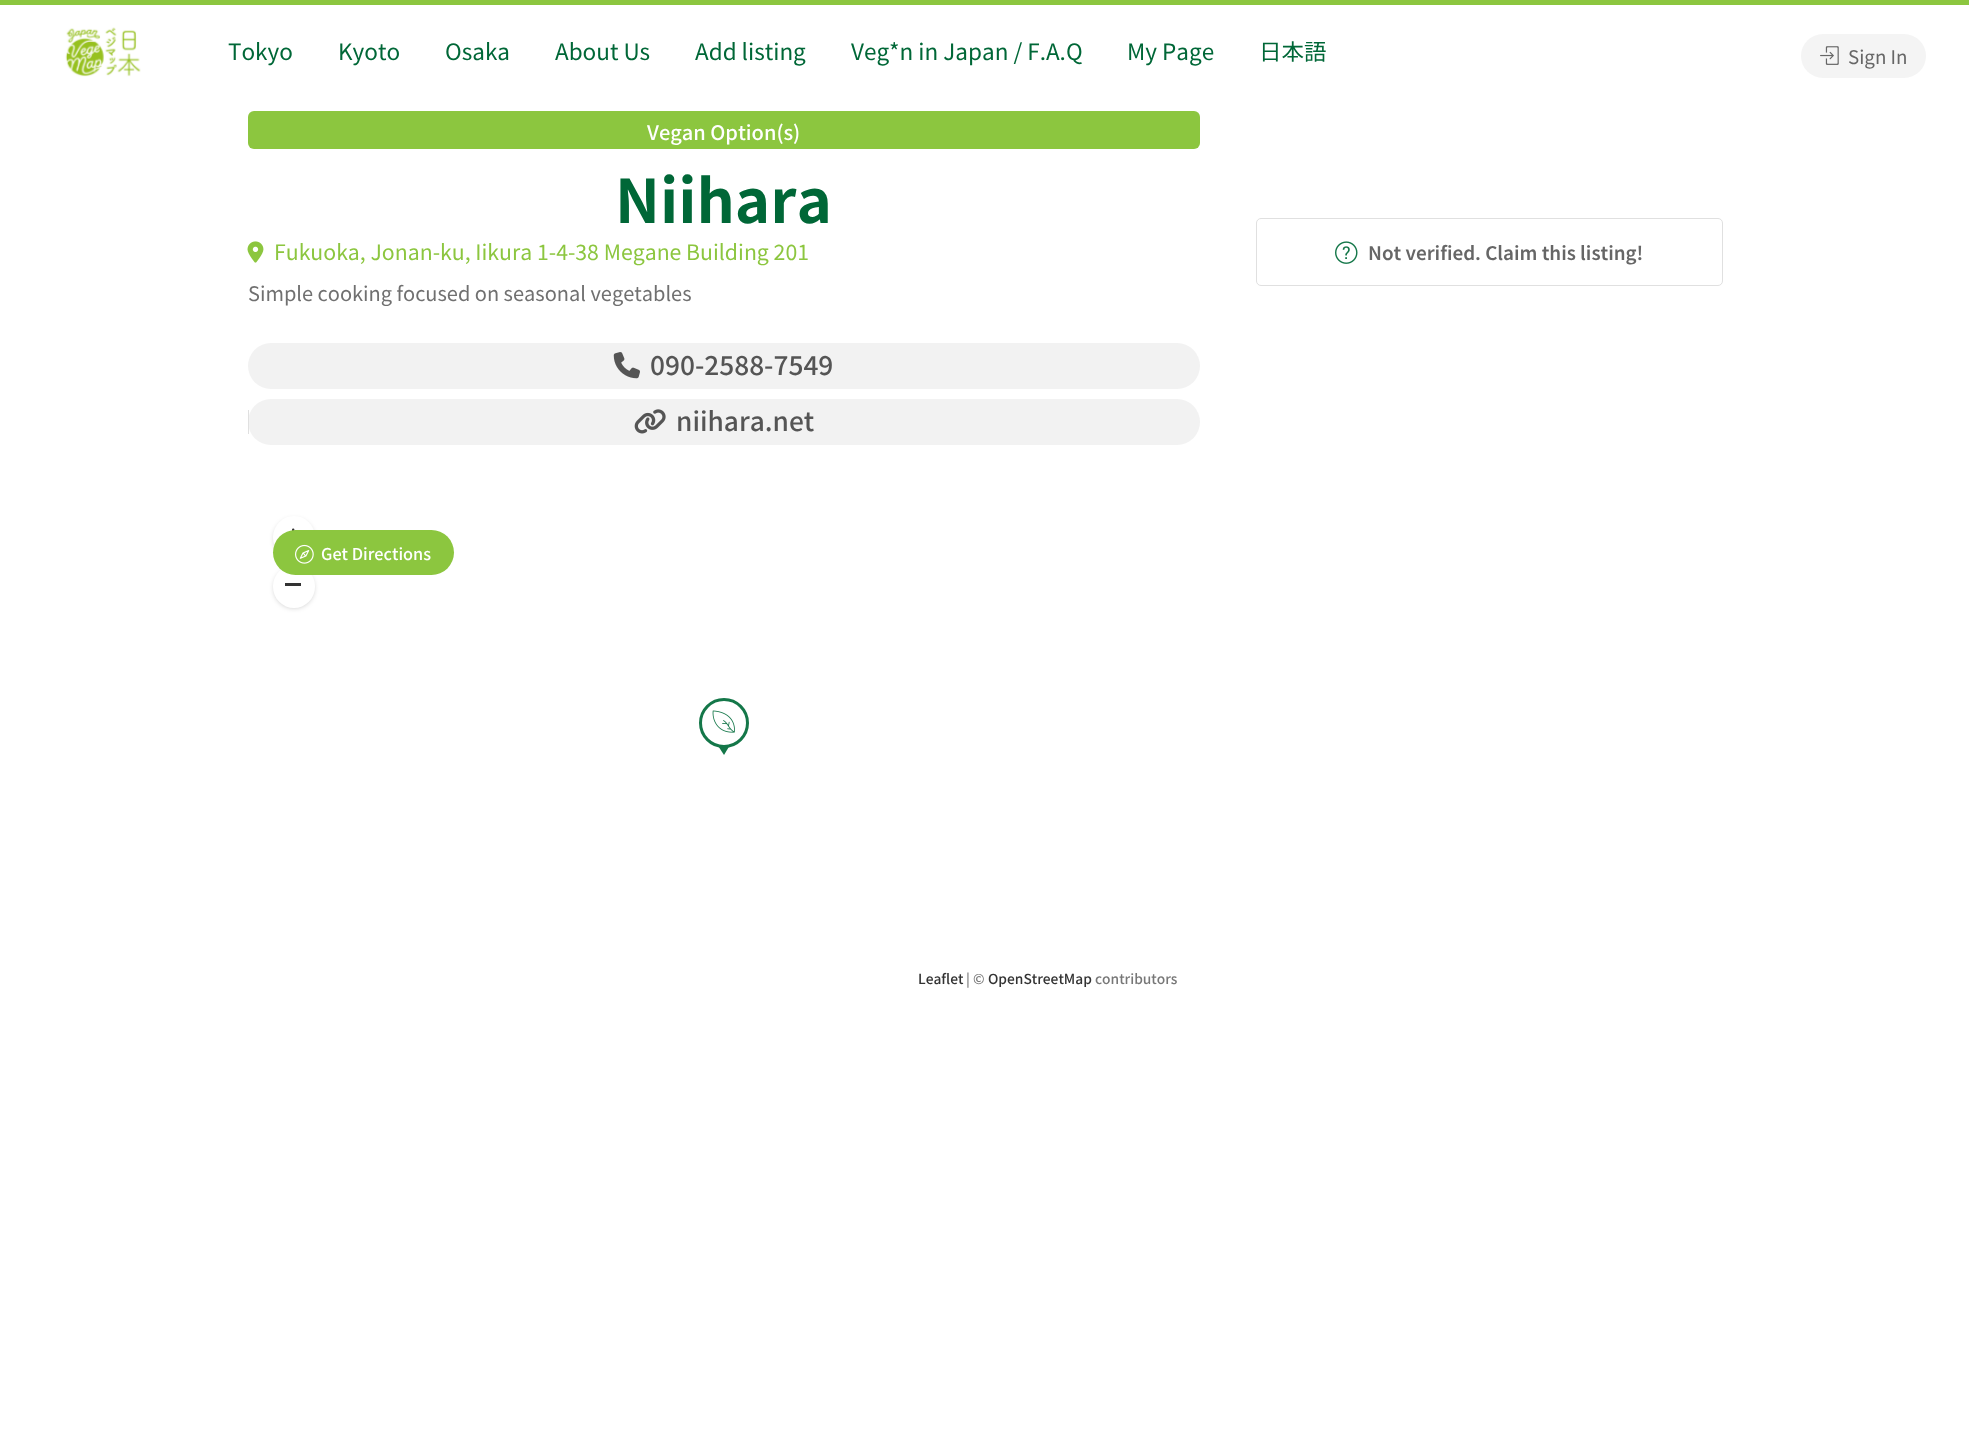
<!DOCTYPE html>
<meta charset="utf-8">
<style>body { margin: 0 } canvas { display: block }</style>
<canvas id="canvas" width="1969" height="1445"></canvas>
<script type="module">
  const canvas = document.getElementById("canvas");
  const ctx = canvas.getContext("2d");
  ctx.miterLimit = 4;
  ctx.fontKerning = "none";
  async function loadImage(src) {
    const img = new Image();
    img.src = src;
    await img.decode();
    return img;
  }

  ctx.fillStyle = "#ffffff";
  ctx.fillRect(0, 0, 1969, 1445);
  ctx.fillStyle = "#8cc63f";
  ctx.fillRect(0, 0, 1969, 5);
  ctx.drawImage(await loadImage("img1.png"), 65, 27, 76, 50);
  ctx.font = "100 22.5px Noto Sans JP";
  ctx.fillStyle = "#006737";
  ctx.fillText("Tokyo", 228, 60);
  ctx.fillText("Kyoto", 338, 60);
  ctx.fillText("Osaka", 445, 60);
  ctx.fillText("About Us", 555, 60);
  ctx.fillText("Add listing", 695, 60);
  ctx.fillText("Veg*n in Japan / F.A.Q", 851, 60);
  ctx.fillText("My Page", 1127, 60);
  ctx.fillText("日本語", 1259, 60);
  ctx.fillStyle = "#f4f4f4";
  ctx.beginPath();
  ctx.roundRect(1801, 34, 125, 44, 22);
  ctx.fill();
  ctx.drawImage(await loadImage("img2.png"), 1820, 46, 19, 19);
  ctx.font = "100 18.75px Noto Sans JP";
  ctx.fillStyle = "#666666";
  ctx.fillText("Sign In", 1848, 64);
  ctx.fillStyle = "#8cc63f";
  ctx.beginPath();
  ctx.roundRect(248, 111, 952, 38, 6);
  ctx.fill();
  ctx.font = "500 20px Noto Sans JP";
  ctx.fillStyle = "#ffffff";
  ctx.fillText("Vegan Option(s)", 647, 140);
  ctx.font = "bold 60px Noto Sans JP";
  ctx.fillStyle = "#006737";
  ctx.fillText("Niihara", 615, 223);
  ctx.drawImage(await loadImage("img3.png"), 247, 241, 17, 22);
  ctx.font = "100 21.25px Noto Sans JP";
  ctx.fillStyle = "#8cc63f";
  ctx.fillText("Fukuoka, Jonan-ku, Iikura 1-4-38 Megane Building 201", 274, 260);
  ctx.font = "100 20px Noto Sans JP";
  ctx.fillStyle = "#707070";
  ctx.fillText("Simple cooking focused on seasonal vegetables", 248, 301);
  ctx.fillStyle = "#f2f2f2";
  ctx.beginPath();
  ctx.roundRect(248, 343, 952, 46, 23);
  ctx.fill();
  ctx.drawImage(await loadImage("img4.png"), 613, 352, 27, 27);
  ctx.font = "500 26.25px Noto Sans JP";
  ctx.fillStyle = "#555555";
  ctx.fillText("090-2588-7549", 650, 375);
  ctx.fillStyle = "#f2f2f2";
  ctx.beginPath();
  ctx.roundRect(248, 399, 952, 46, 23);
  ctx.fill();
  ctx.fillStyle = "#e0e0e0";
  ctx.fillRect(248, 410, 1, 24);
  ctx.drawImage(await loadImage("img5.png"), 634, 409, 32, 25);
  ctx.fillStyle = "#555555";
  ctx.fillText("niihara.net", 676, 431);
  ctx.fillStyle = "rgba(0, 0, 0, 0.2)";
  ctx.filter = "blur(2.5px)";
  ctx.beginPath();
  ctx.roundRect(274, 519, 40, 40, 20);
  ctx.fill();
  ctx.filter = "none";
  ctx.fillStyle = "#ffffff";
  ctx.beginPath();
  ctx.roundRect(273, 516, 42, 43, 21);
  ctx.fill();
  ctx.drawImage(await loadImage("img8.png"), 292, 528, 3, 3);
  ctx.fillStyle = "rgba(0, 0, 0, 0.2)";
  ctx.filter = "blur(2.5px)";
  ctx.beginPath();
  ctx.roundRect(274, 568, 40, 40, 20);
  ctx.fill();
  ctx.filter = "none";
  ctx.fillStyle = "#ffffff";
  ctx.beginPath();
  ctx.roundRect(273, 565, 42, 43, 21);
  ctx.fill();
  ctx.fillStyle = "#8cc63f";
  ctx.beginPath();
  ctx.roundRect(273, 530, 181, 45, 22.5);
  ctx.fill();
  ctx.drawImage(await loadImage("img6.png"), 295, 544, 19, 20);
  ctx.font = "500 16.25px Noto Sans JP";
  ctx.fillStyle = "#ffffff";
  ctx.fillText("Get Directions", 321, 560);
  ctx.fillStyle = "#147749";
  ctx.beginPath();
  ctx.moveTo(717.5, 745);
  ctx.lineTo(730, 745);
  ctx.lineTo(724, 755);
  ctx.closePath();
  ctx.fill();
  ctx.fillStyle = "#ffffff";
  ctx.beginPath();
  ctx.arc(724, 723, 23.5, 0, Math.PI * 2);
  ctx.fill();
  ctx.strokeStyle = "#147749";
  ctx.lineWidth = 3;
  ctx.stroke();
  ctx.drawImage(await loadImage("img7.png"), 712, 710, 23, 23);
  ctx.fillStyle = "#333333";
  ctx.fillRect(285, 583, 16, 3);
  ctx.font = "500 13.75px Noto Sans JP";
  ctx.fillText("Leaflet", 918, 984);
  ctx.fillStyle = "#777777";
  ctx.fillText("| ©", 966, 984);
  ctx.fillStyle = "#333333";
  ctx.fillText("OpenStreetMap", 988, 984);
  ctx.fillStyle = "#777777";
  ctx.fillText("contributors", 1095, 984);
  ctx.beginPath();
  ctx.roundRect(1256.5, 218.5, 466, 67, 4.5);
  ctx.strokeStyle = "#e0e0e0";
  ctx.lineWidth = 1;
  ctx.stroke();
  ctx.drawImage(await loadImage("img9.png"), 1335, 241, 23, 23);
  ctx.font = "600 18.75px Noto Sans JP";
  ctx.fillStyle = "#666666";
  ctx.fillText("Not verified. Claim this listing!", 1368, 260);
</script>
